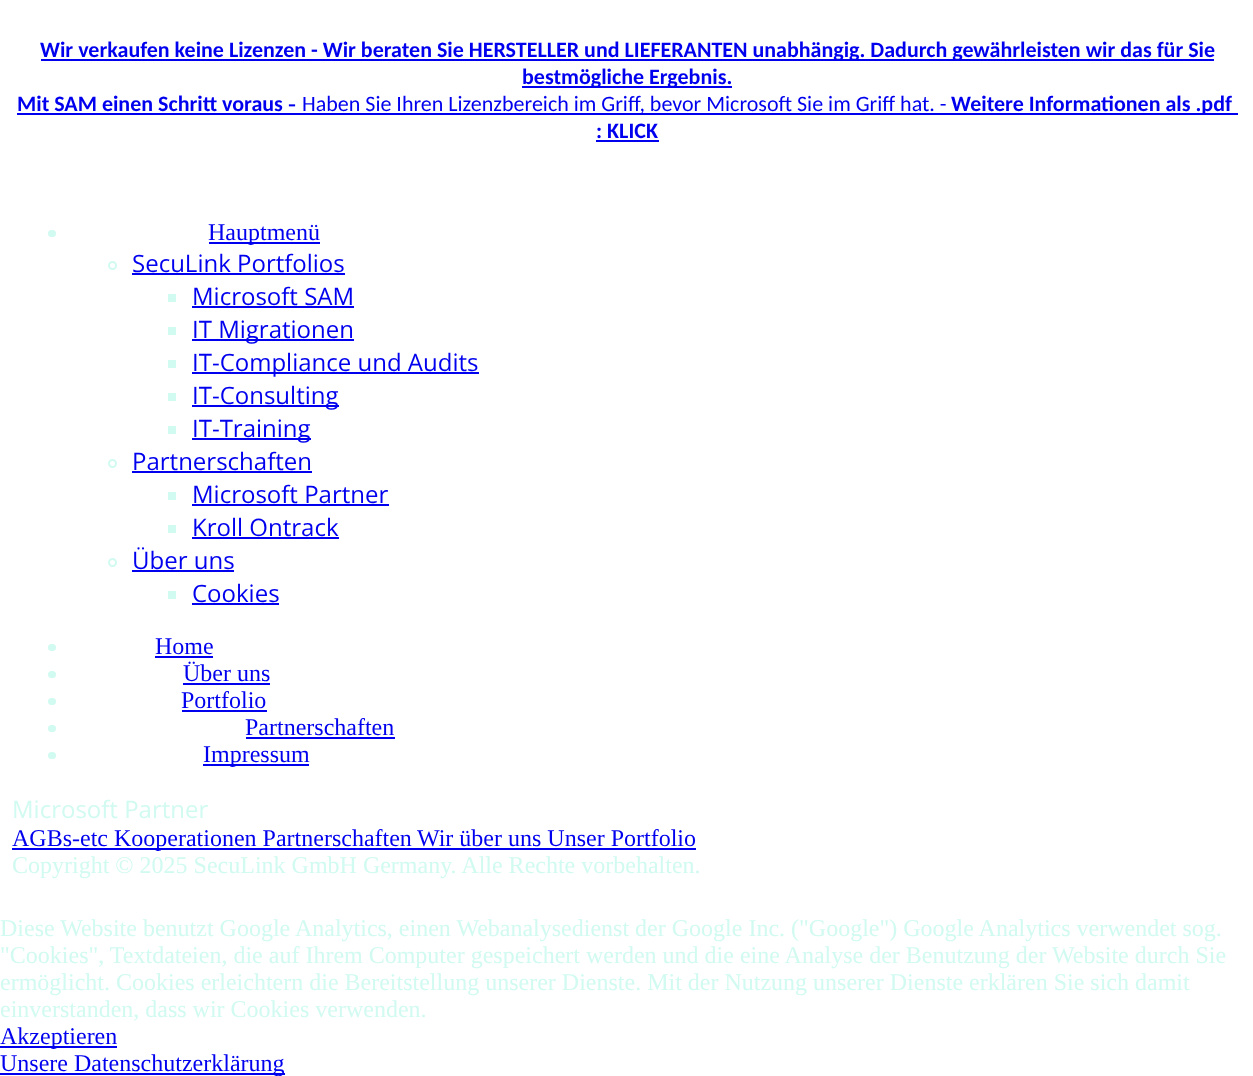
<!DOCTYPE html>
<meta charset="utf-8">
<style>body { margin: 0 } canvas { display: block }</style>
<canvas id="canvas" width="1253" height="1076"></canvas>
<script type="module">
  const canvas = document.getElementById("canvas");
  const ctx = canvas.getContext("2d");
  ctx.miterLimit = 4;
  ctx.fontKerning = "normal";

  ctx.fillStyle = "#ffffff";
  ctx.fillRect(0, 0, 1253, 1076);
  ctx.fillStyle = "#0000ee";
  ctx.fillRect(41, 59, 1173, 2);
  ctx.font = "bold 22px Carlito";
  ctx.fillText("Wir verkaufen keine Lizenzen - Wir beraten Sie HERSTELLER und LIEFERANTEN unabhängig. Dadurch gewährleisten wir das für Sie", 40, 57);
  ctx.fillRect(522, 86, 210, 2);
  ctx.fillText("bestmögliche Ergebnis.", 522, 84);
  ctx.fillText("Mit SAM einen Schritt voraus", 17, 111);
  ctx.font = "bold 24px Liberation Serif";
  ctx.fillText("-", 288, 111);
  ctx.fillRect(17, 113, 1221, 2);
  ctx.font = "22px Carlito";
  ctx.fillText("Haben Sie Ihren Lizenzbereich im Griff, bevor Microsoft", 302, 111);
  ctx.fillText("Sie im Griff hat. -", 797, 111);
  ctx.font = "bold 22px Carlito";
  ctx.fillText("Weitere Informationen als .pdf", 951, 111);
  ctx.fillText(": KLICK", 596, 138);
  ctx.fillRect(596, 140, 63, 2);
  ctx.fillStyle = "#d1faf1";
  ctx.beginPath();
  ctx.roundRect(48, 230, 8, 7, 3.5);
  ctx.fill();
  ctx.fillStyle = "#0000ee";
  ctx.fillRect(209, 242, 111, 2);
  ctx.font = "24px Liberation Serif";
  ctx.fillText("Hauptmenü", 208, 240);
  ctx.beginPath();
  ctx.arc(112.5, 265.5, 3.5, 0, Math.PI * 2);
  ctx.strokeStyle = "#d1faf1";
  ctx.lineWidth = 2;
  ctx.stroke();
  ctx.font = "24px Open Sans";
  ctx.fillText("SecuLink Portfolios", 132, 272);
  ctx.fillRect(132, 273, 213, 2);
  ctx.fillStyle = "#d1faf1";
  ctx.fillRect(168, 294, 8, 8);
  ctx.fillStyle = "#0000ee";
  ctx.fillText("Microsoft SAM", 192, 305);
  ctx.fillRect(192, 306, 162, 2);
  ctx.fillStyle = "#d1faf1";
  ctx.fillRect(168, 327, 8, 8);
  ctx.fillStyle = "#0000ee";
  ctx.fillRect(192, 339, 162, 2);
  ctx.fillText("IT Migrationen", 192, 338);
  ctx.fillStyle = "#d1faf1";
  ctx.fillRect(168, 360, 8, 8);
  ctx.fillStyle = "#0000ee";
  ctx.fillRect(192, 372, 287, 2);
  ctx.fillText("IT-Compliance und Audits", 192, 371);
  ctx.fillStyle = "#d1faf1";
  ctx.fillRect(168, 393, 8, 8);
  ctx.fillStyle = "#0000ee";
  ctx.fillRect(192, 405, 147, 2);
  ctx.fillText("IT-Consulting", 192, 404);
  ctx.fillStyle = "#d1faf1";
  ctx.fillRect(168, 426, 8, 8);
  ctx.fillStyle = "#0000ee";
  ctx.fillRect(192, 438, 119, 2);
  ctx.fillText("IT-Training", 192, 437);
  ctx.beginPath();
  ctx.arc(112.5, 463.5, 3.5, 0, Math.PI * 2);
  ctx.stroke();
  ctx.fillText("Partnerschaften", 132, 470);
  ctx.fillRect(132, 471, 180, 2);
  ctx.fillStyle = "#d1faf1";
  ctx.fillRect(168, 492, 8, 8);
  ctx.fillStyle = "#0000ee";
  ctx.fillText("Microsoft Partner", 192, 503);
  ctx.fillRect(192, 504, 197, 2);
  ctx.fillStyle = "#d1faf1";
  ctx.fillRect(168, 525, 8, 8);
  ctx.fillStyle = "#0000ee";
  ctx.fillText("Kroll Ontrack", 192, 536);
  ctx.fillRect(192, 537, 147, 2);
  ctx.beginPath();
  ctx.arc(112.5, 562.5, 3.5, 0, Math.PI * 2);
  ctx.stroke();
  ctx.fillText("Über uns", 132, 569);
  ctx.fillRect(132, 570, 102, 2);
  ctx.fillStyle = "#d1faf1";
  ctx.fillRect(168, 591, 8, 8);
  ctx.fillStyle = "#0000ee";
  ctx.fillText("Cookies", 192, 602);
  ctx.fillRect(192, 603, 87, 2);
  ctx.fillStyle = "#d1faf1";
  ctx.beginPath();
  ctx.roundRect(48, 644, 8, 7, 3.5);
  ctx.fill();
  ctx.font = "24px Liberation Serif";
  ctx.fillStyle = "#0000ee";
  ctx.fillText("Home", 155, 654);
  ctx.fillRect(155, 656, 58, 2);
  ctx.fillStyle = "#d1faf1";
  ctx.beginPath();
  ctx.roundRect(48, 671, 8, 7, 3.5);
  ctx.fill();
  ctx.fillStyle = "#0000ee";
  ctx.fillText("Über uns", 183, 681);
  ctx.fillRect(183, 683, 87, 2);
  ctx.fillStyle = "#d1faf1";
  ctx.beginPath();
  ctx.roundRect(48, 698, 8, 7, 3.5);
  ctx.fill();
  ctx.fillStyle = "#0000ee";
  ctx.fillText("Portfolio", 181, 708);
  ctx.fillRect(182, 710, 85, 2);
  ctx.fillStyle = "#d1faf1";
  ctx.beginPath();
  ctx.roundRect(48, 725, 8, 7, 3.5);
  ctx.fill();
  ctx.fillStyle = "#0000ee";
  ctx.fillText("Partnerschaften", 245, 735);
  ctx.fillRect(246, 737, 149, 2);
  ctx.fillStyle = "#d1faf1";
  ctx.beginPath();
  ctx.roundRect(48, 752, 8, 7, 3.5);
  ctx.fill();
  ctx.fillStyle = "#0000ee";
  ctx.fillRect(203, 764, 106, 2);
  ctx.fillText("Impressum", 203, 762);
  ctx.font = "24px Open Sans";
  ctx.fillStyle = "#d1faf1";
  ctx.fillText("Microsoft Partner", 12, 818);
  ctx.fillStyle = "#0000ee";
  ctx.fillRect(12, 848, 684, 2);
  ctx.font = "24px Liberation Serif";
  ctx.fillText("AGBs-etc Kooperationen Partnerschaften", 12, 846);
  ctx.fillText("Wir über uns Unser Portfolio", 417, 846);
  ctx.fillStyle = "#d1faf1";
  ctx.fillText("Copyright © 2025 SecuLink GmbH Germany. Alle Rechte vorbehalten.", 12, 873);
  ctx.fillText("Diese Website benutzt Google Analytics, einen Webanalysedienst der Google Inc. (\"Google\") Google Analytics verwendet sog.", 0, 936);
  ctx.fillText("\"Cookies\", Textdateien, die auf Ihrem Computer gespeichert werden und die eine Analyse der Benutzung der Website durch Sie", 0, 963);
  ctx.fillText("ermöglicht. Cookies erleichtern die Bereitstellung unserer Dienste. Mit der Nutzung unserer Dienste erklären Sie sich damit", 0, 990);
  ctx.fillText("einverstanden, dass wir Cookies verwenden.", 0, 1017);
  ctx.fillStyle = "#0000ee";
  ctx.fillRect(0, 1046, 117, 2);
  ctx.fillText("Akzeptieren", 0, 1044);
  ctx.fillRect(0, 1073, 285, 2);
  ctx.fillText("Unsere Datenschutzerklärung", 0, 1071);
</script>
